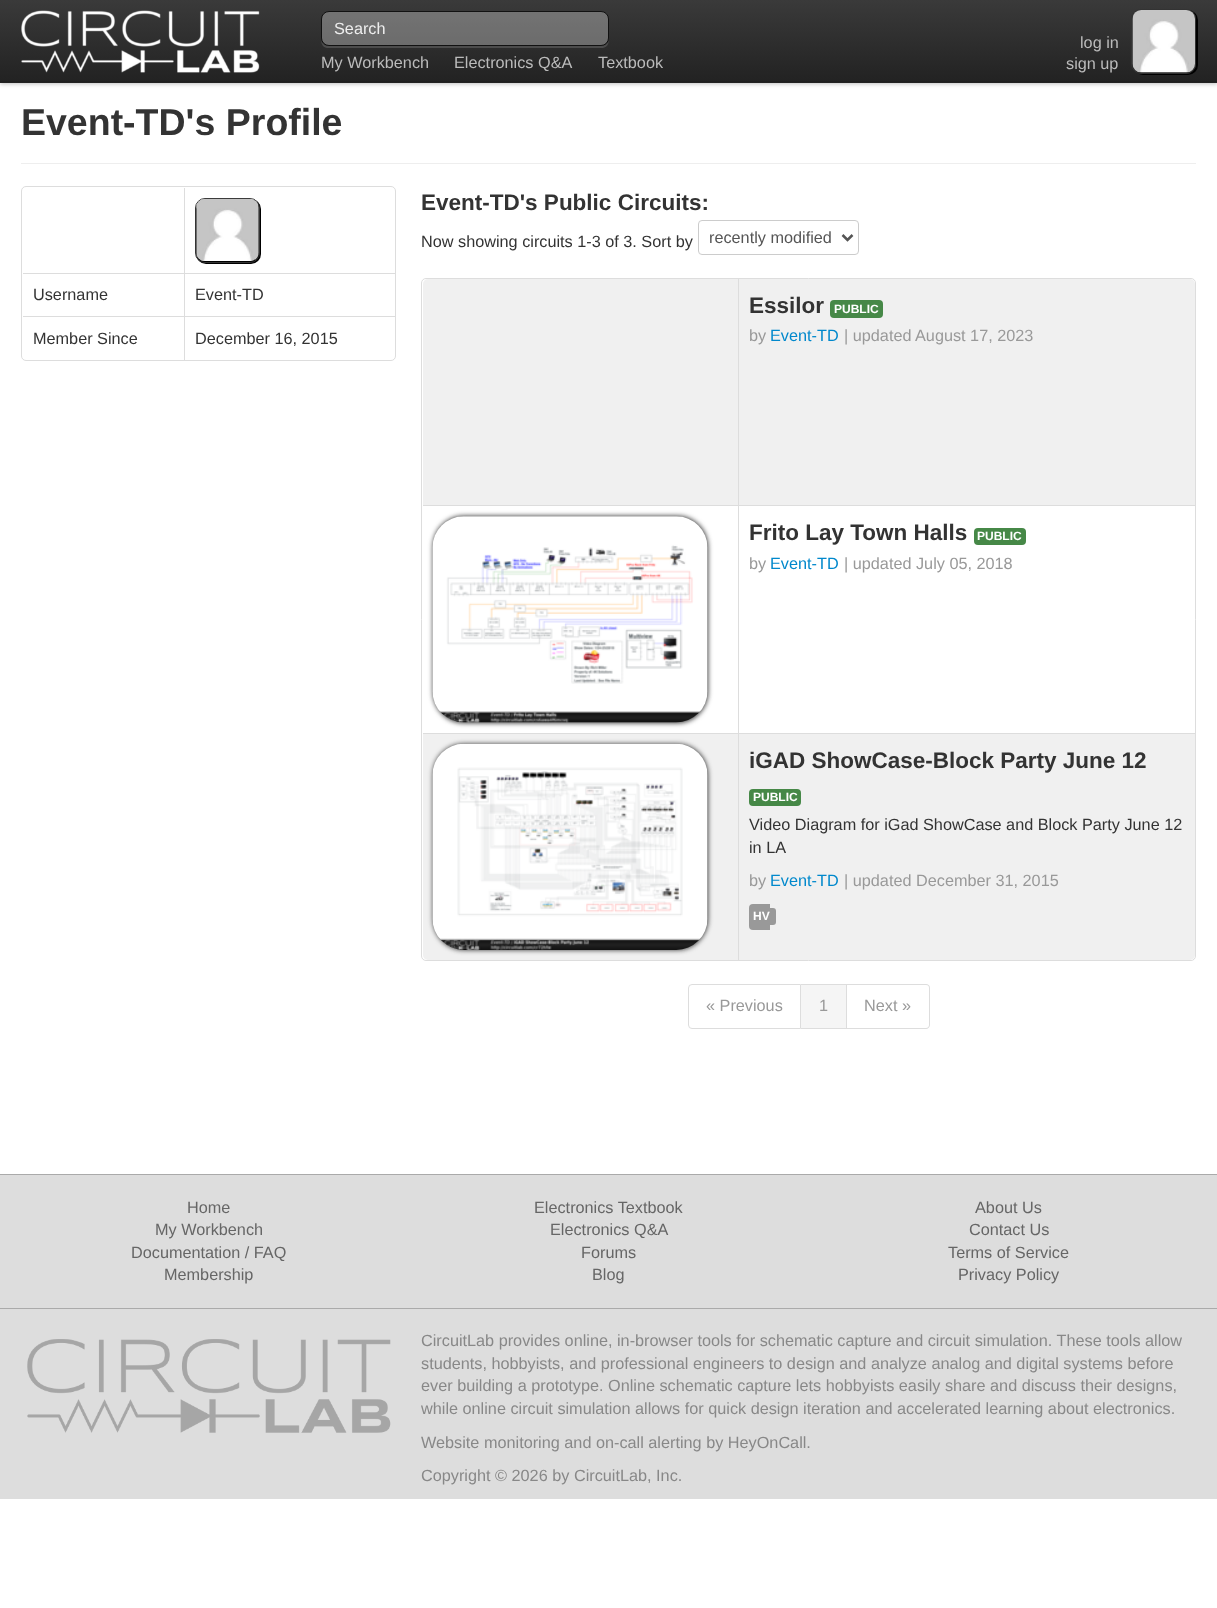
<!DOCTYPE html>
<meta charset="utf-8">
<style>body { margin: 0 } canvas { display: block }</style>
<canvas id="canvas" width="1217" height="1608"></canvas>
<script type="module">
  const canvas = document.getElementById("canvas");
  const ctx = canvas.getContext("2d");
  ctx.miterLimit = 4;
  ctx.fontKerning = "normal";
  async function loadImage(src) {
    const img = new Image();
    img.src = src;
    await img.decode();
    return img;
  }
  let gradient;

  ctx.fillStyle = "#ffffff";
  ctx.fillRect(0, 0, 1217, 1608);
  ctx.fillStyle = "rgba(0, 0, 0, 0.25)";
  ctx.filter = "blur(2px)";
  ctx.beginPath();
  ctx.rect(0, 1, 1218, 83);
  ctx.fill();
  ctx.filter = "none";
  gradient = ctx.createLinearGradient(609, 0, 609, 83);
  gradient.addColorStop(0, "#3a3a3a");
  gradient.addColorStop(1, "#222222");
  ctx.fillStyle = gradient;
  ctx.fillRect(0, 0, 1217, 83);
  ctx.fillStyle = "#1f1f1f";
  ctx.fillRect(0, 81, 1217, 1);
  ctx.drawImage(await loadImage("img1.png"), 21, 10, 239, 63);
  ctx.fillStyle = "#4c4c4c";
  ctx.beginPath();
  ctx.moveTo(321, 19);
  ctx.lineTo(321, 34);
  ctx.bezierCurveTo(321, 40, 320, 48, 329, 48);
  ctx.lineTo(601, 48);
  ctx.bezierCurveTo(610, 48, 609, 40, 609, 34);
  ctx.lineTo(609, 19);
  ctx.lineTo(609, 39);
  ctx.bezierCurveTo(609, 43, 605, 46, 601, 46);
  ctx.lineTo(329, 46);
  ctx.bezierCurveTo(325, 46, 321, 43, 321, 39);
  ctx.closePath();
  ctx.fill();
  ctx.fillStyle = "rgba(255, 255, 255, 0.3)";
  ctx.beginPath();
  ctx.roundRect(321.5, 11.5, 287, 34, 7.5);
  ctx.fill();
  ctx.strokeStyle = "#111111";
  ctx.stroke();
  ctx.font = "16.25px Liberation Sans";
  ctx.fillStyle = "#eeeeee";
  ctx.fillText("Search", 334, 34);
  ctx.save();
  ctx.beginPath();
  ctx.moveTo(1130, 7);
  ctx.lineTo(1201, 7);
  ctx.lineTo(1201, 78);
  ctx.lineTo(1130, 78);
  ctx.closePath();
  ctx.moveTo(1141, 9);
  ctx.lineTo(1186, 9);
  ctx.bezierCurveTo(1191.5, 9, 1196, 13.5, 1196, 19);
  ctx.lineTo(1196, 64);
  ctx.bezierCurveTo(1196, 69.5, 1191.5, 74, 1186, 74);
  ctx.lineTo(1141, 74);
  ctx.bezierCurveTo(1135.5, 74, 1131, 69.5, 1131, 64);
  ctx.lineTo(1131, 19);
  ctx.bezierCurveTo(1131, 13.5, 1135.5, 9, 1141, 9);
  ctx.closePath();
  ctx.clip("evenodd");
  ctx.fillStyle = "#000000";
  ctx.filter = "blur(0.5px)";
  ctx.beginPath();
  ctx.roundRect(1133, 10, 65, 65, 10);
  ctx.fill();
  ctx.filter = "none";
  ctx.restore();
  ctx.beginPath();
  ctx.roundRect(1131.5, 9.5, 64, 64, 9.5);
  ctx.strokeStyle = "#333333";
  ctx.stroke();
  ctx.drawImage(await loadImage("img2.png"), 1132, 10, 63, 63);
  ctx.fillStyle = "#bbbbbb";
  ctx.fillText("My Workbench", 321, 68);
  ctx.fillText("Electronics Q&A", 454, 68);
  ctx.fillText("Textbook", 598, 68);
  ctx.fillText("log in", 1080, 48);
  ctx.fillText("sign up", 1066, 69);
  ctx.fillStyle = "#eeeeee";
  ctx.fillRect(21, 163, 1175, 1);
  ctx.font = "bold 37.5px Liberation Sans";
  ctx.fillStyle = "#333333";
  ctx.fillText("Event-TD's Profile", 21, 135);
  ctx.beginPath();
  ctx.roundRect(21.5, 186.5, 374, 174, 4.5);
  ctx.strokeStyle = "#dddddd";
  ctx.stroke();
  ctx.fillStyle = "#dddddd";
  ctx.fillRect(184, 188, 1, 85);
  ctx.fillStyle = "#000000";
  ctx.filter = "blur(0.5px)";
  ctx.beginPath();
  ctx.roundRect(196, 199, 65, 65, 10);
  ctx.fill();
  ctx.filter = "none";
  ctx.beginPath();
  ctx.roundRect(195.5, 198.5, 64, 64, 9.5);
  ctx.strokeStyle = "#333333";
  ctx.stroke();
  ctx.drawImage(await loadImage("img3.png"), 196, 198, 63, 63);
  ctx.fillStyle = "#dddddd";
  ctx.fillRect(23, 273, 372, 1);
  ctx.font = "16.25px Liberation Sans";
  ctx.fillStyle = "#333333";
  ctx.fillText("Username", 33, 300);
  ctx.fillStyle = "#dddddd";
  ctx.fillRect(184, 273, 1, 43);
  ctx.fillStyle = "#333333";
  ctx.fillText("Event-TD", 195, 300);
  ctx.fillStyle = "#dddddd";
  ctx.fillRect(23, 316, 372, 1);
  ctx.fillStyle = "#333333";
  ctx.fillText("Member Since", 33, 344);
  ctx.fillStyle = "#dddddd";
  ctx.fillRect(184, 316, 1, 44);
  ctx.fillStyle = "#333333";
  ctx.fillText("December 16, 2015", 195, 344);
  ctx.font = "bold 22.5px Liberation Sans";
  ctx.fillText("Event-TD's Public Circuits:", 421, 210);
  ctx.font = "16.25px Liberation Sans";
  ctx.fillText("Now showing circuits 1-3 of 3. Sort by", 421, 247);
  ctx.beginPath();
  ctx.roundRect(698.5, 220.5, 160, 34, 3.5);
  ctx.strokeStyle = "#cccccc";
  ctx.stroke();
  ctx.beginPath();
  ctx.moveTo(842.5, 235);
  ctx.lineTo(847.5, 240);
  ctx.lineTo(852.5, 235);
  ctx.strokeStyle = "#555555";
  ctx.lineWidth = 2.5;
  ctx.stroke();
  ctx.fillStyle = "#555555";
  ctx.fillText("recently modified", 709, 243);
  ctx.beginPath();
  ctx.roundRect(421.5, 278.5, 774, 682, 4.5);
  ctx.strokeStyle = "#dddddd";
  ctx.lineWidth = 1;
  ctx.stroke();
  ctx.fillStyle = "#f0f0f0";
  ctx.beginPath();
  ctx.roundRect(423, 279, 315, 226, [5, 0, 0, 0]);
  ctx.fill();
  ctx.beginPath();
  ctx.roundRect(738, 279, 457, 226, [0, 5, 0, 0]);
  ctx.fill();
  ctx.fillStyle = "#dddddd";
  ctx.fillRect(738, 279, 1, 226);
  ctx.font = "bold 22.5px Liberation Sans";
  ctx.fillStyle = "#333333";
  ctx.fillText("Essilor", 749, 313);
  ctx.fillStyle = "#468847";
  ctx.beginPath();
  ctx.roundRect(830, 300, 53, 18, 4);
  ctx.fill();
  ctx.font = "bold 12px Liberation Sans";
  ctx.fillStyle = "#ffffff";
  ctx.fillText("PUBLIC", 834, 313);
  ctx.font = "16.25px Liberation Sans";
  ctx.fillStyle = "#999999";
  ctx.fillText("by", 749, 341);
  ctx.fillStyle = "#0088cc";
  ctx.fillText("Event-TD", 770, 341);
  ctx.fillStyle = "#999999";
  ctx.fillText("| updated", 844, 341);
  ctx.fillText("August 17, 2023", 915, 341);
  ctx.fillStyle = "#dddddd";
  ctx.fillRect(423, 505, 772, 1);
  ctx.fillStyle = "#333333";
  ctx.filter = "blur(2.5px)";
  ctx.beginPath();
  ctx.roundRect(433, 516, 275, 207, 31);
  ctx.fill();
  ctx.filter = "none";
  ctx.drawImage(await loadImage("img4.png"), 432, 516, 276, 207);
  ctx.fillStyle = "#dddddd";
  ctx.fillRect(738, 505, 1, 228);
  ctx.font = "bold 22.5px Liberation Sans";
  ctx.fillStyle = "#333333";
  ctx.fillText("Frito Lay Town Halls", 749, 540);
  ctx.fillStyle = "#468847";
  ctx.beginPath();
  ctx.roundRect(974, 528, 52, 17, 4);
  ctx.fill();
  ctx.font = "bold 12px Liberation Sans";
  ctx.fillStyle = "#ffffff";
  ctx.fillText("PUBLIC", 977, 540);
  ctx.font = "16.25px Liberation Sans";
  ctx.fillStyle = "#999999";
  ctx.fillText("by", 749, 569);
  ctx.fillStyle = "#0088cc";
  ctx.fillText("Event-TD", 770, 569);
  ctx.fillStyle = "#999999";
  ctx.fillText("| updated July 05, 2018", 844, 569);
  ctx.fillStyle = "#f0f0f0";
  ctx.beginPath();
  ctx.roundRect(423, 733, 315, 227, [0, 0, 0, 5]);
  ctx.fill();
  ctx.fillStyle = "#dddddd";
  ctx.fillRect(423, 733, 315, 1);
  ctx.fillStyle = "#333333";
  ctx.filter = "blur(2.5px)";
  ctx.beginPath();
  ctx.roundRect(433, 744, 275, 206, 31);
  ctx.fill();
  ctx.filter = "none";
  ctx.drawImage(await loadImage("img5.png"), 432, 743, 276, 207);
  ctx.fillStyle = "#f0f0f0";
  ctx.beginPath();
  ctx.roundRect(738, 733, 457, 227, [0, 0, 5, 0]);
  ctx.fill();
  ctx.fillStyle = "#dddddd";
  ctx.fillRect(738, 733, 457, 1);
  ctx.fillRect(738, 733, 1, 227);
  ctx.font = "bold 22.5px Liberation Sans";
  ctx.fillStyle = "#333333";
  ctx.fillText("iGAD ShowCase-Block Party June 12", 749, 768);
  ctx.fillStyle = "#468847";
  ctx.beginPath();
  ctx.roundRect(749, 789, 52, 17, 4);
  ctx.fill();
  ctx.font = "bold 12px Liberation Sans";
  ctx.fillStyle = "#ffffff";
  ctx.fillText("PUBLIC", 753, 801);
  ctx.font = "16.25px Liberation Sans";
  ctx.fillStyle = "#333333";
  ctx.fillText("Video Diagram for iGad ShowCase and Block Party June 12", 749, 830);
  ctx.fillText("in LA", 749, 853);
  ctx.fillStyle = "#999999";
  ctx.fillText("by", 749, 886);
  ctx.fillStyle = "#0088cc";
  ctx.fillText("Event-TD", 770, 886);
  ctx.fillStyle = "#999999";
  ctx.fillText("| updated December 31, 2015", 844, 886);
  ctx.beginPath();
  ctx.roundRect(749, 904, 21, 26, [4, 0, 0, 4]);
  ctx.fill();
  ctx.beginPath();
  ctx.roundRect(770, 908, 6, 17, [0, 3, 3, 0]);
  ctx.fill();
  ctx.font = "bold 12px Liberation Sans";
  ctx.fillStyle = "#ffffff";
  ctx.fillText("HV", 753, 920);
  ctx.beginPath();
  ctx.roundRect(688.5, 984.5, 112, 44, [3.5, 0, 0, 3.5]);
  ctx.stroke();
  ctx.font = "16.25px Liberation Sans";
  ctx.fillStyle = "#999999";
  ctx.fillText("« Previous", 706, 1011);
  ctx.fillStyle = "#f5f5f5";
  ctx.fillRect(801, 985, 45, 43);
  ctx.fillStyle = "#dddddd";
  ctx.fillRect(801, 984, 47, 1);
  ctx.fillRect(846, 984, 1, 45);
  ctx.fillRect(801, 1028, 47, 1);
  ctx.fillStyle = "#999999";
  ctx.fillText("1", 819, 1011);
  ctx.fillStyle = "#dddddd";
  ctx.beginPath();
  ctx.moveTo(848, 984);
  ctx.lineTo(926, 984);
  ctx.bezierCurveTo(928, 984, 930, 985, 930, 988);
  ctx.lineTo(930, 1025);
  ctx.bezierCurveTo(930, 1027, 928, 1029, 926, 1029);
  ctx.lineTo(848, 1029);
  ctx.closePath();
  ctx.moveTo(848, 985);
  ctx.lineTo(926, 985);
  ctx.bezierCurveTo(928, 985, 929, 986, 929, 988);
  ctx.lineTo(929, 1025);
  ctx.bezierCurveTo(929, 1026, 928, 1028, 926, 1028);
  ctx.lineTo(848, 1028);
  ctx.closePath();
  ctx.fill("evenodd");
  ctx.fillStyle = "#999999";
  ctx.fillText("Next »", 864, 1011);
  ctx.fillStyle = "#dddddd";
  ctx.fillRect(0, 1175, 1217, 133);
  ctx.fillStyle = "#aaaaaa";
  ctx.fillRect(0, 1174, 1217, 1);
  ctx.fillStyle = "#666666";
  ctx.fillText("Home", 187, 1213);
  ctx.fillText("My Workbench", 155, 1235);
  ctx.fillText("Documentation / FAQ", 131, 1258);
  ctx.fillText("Membership", 164, 1280);
  ctx.fillText("Electronics Textbook", 534, 1213);
  ctx.fillText("Electronics Q&A", 550, 1235);
  ctx.fillText("Forums", 581, 1258);
  ctx.fillText("Blog", 592, 1280);
  ctx.fillText("About Us", 975, 1213);
  ctx.fillText("Contact Us", 969, 1235);
  ctx.fillText("Terms of Service", 948, 1258);
  ctx.fillText("Privacy Policy", 958, 1280);
  ctx.fillStyle = "#dddddd";
  ctx.fillRect(0, 1309, 1217, 190);
  ctx.fillStyle = "#aaaaaa";
  ctx.fillRect(0, 1308, 1217, 1);
  ctx.drawImage(await loadImage("img6.png"), 27, 1339, 364, 94);
  ctx.fillStyle = "#888888";
  ctx.fillText("CircuitLab provides online, in-browser tools for schematic capture and circuit simulation. These tools allow", 421, 1346);
  ctx.fillText("students, hobbyists, and professional engineers to design and analyze analog and digital systems before", 421, 1369);
  ctx.fillText("ever building a prototype. Online schematic capture lets hobbyists easily share and discuss their designs,", 421, 1391);
  ctx.fillText("while online circuit simulation allows for quick design iteration and accelerated learning about electronics.", 421, 1414);
  ctx.fillText("Website monitoring and on-call alerting by HeyOnCall.", 421, 1448);
  ctx.fillText("Copyright © 2026 by CircuitLab, Inc.", 421, 1481);
</script>
